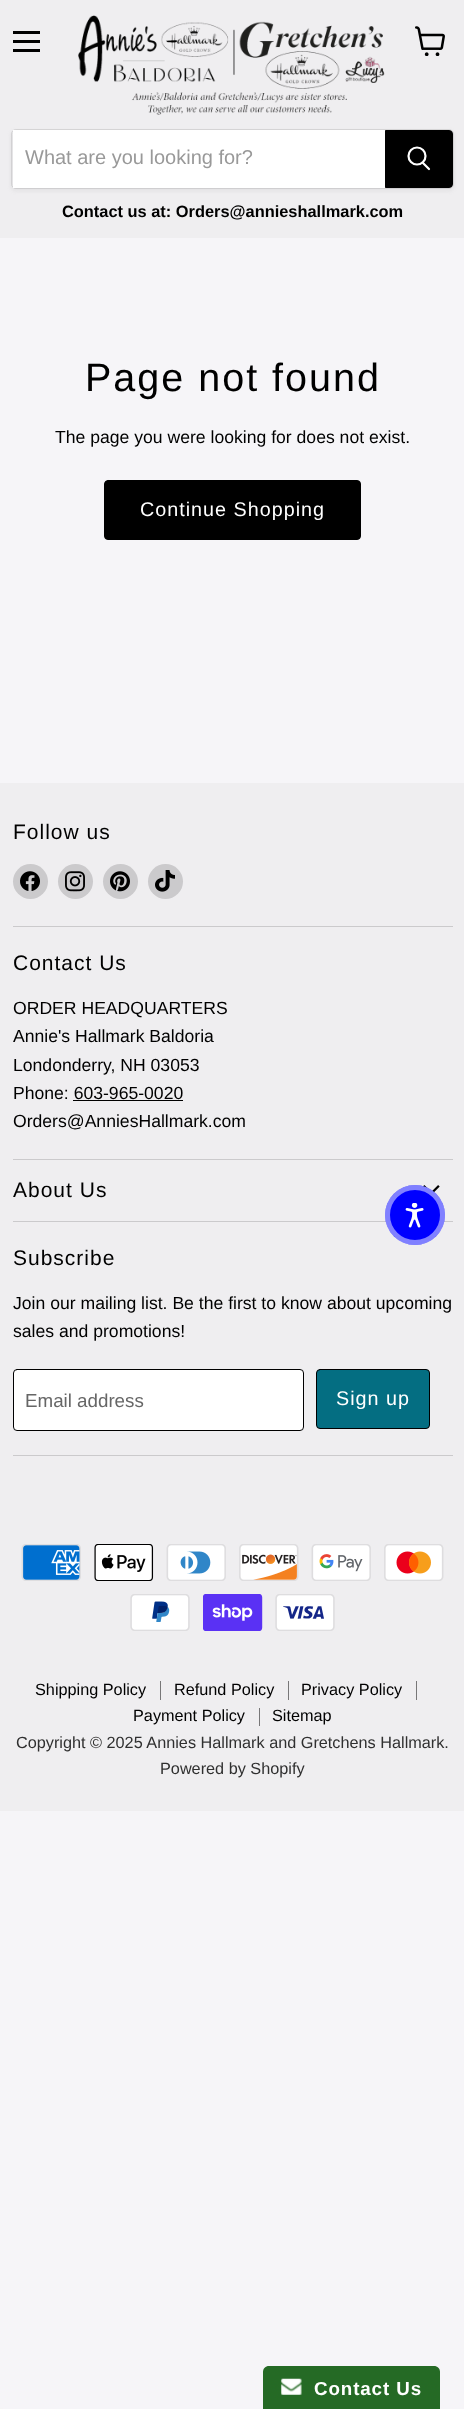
<!DOCTYPE html>
<meta charset="utf-8">
<style>body { margin: 0 } canvas { display: block }</style>
<canvas id="canvas" width="464" height="2409"></canvas>
<script type="module">
  const canvas = document.getElementById("canvas");
  const ctx = canvas.getContext("2d");
  ctx.miterLimit = 4;
  ctx.fontKerning = "normal";
  async function loadImage(src) {
    const img = new Image();
    img.src = src;
    await img.decode();
    return img;
  }

  ctx.fillStyle = "#f6f5f8";
  ctx.fillRect(0, 0, 464, 2409);
  ctx.fillStyle = "#efeef0";
  ctx.fillRect(0, 0, 464, 238);
  ctx.fillStyle = "#000000";
  ctx.fillRect(13, 31, 27, 3);
  ctx.fillRect(13, 40, 27, 3);
  ctx.fillRect(13, 49, 27, 3);
  ctx.drawImage(await loadImage("img1.png"), 415, 26, 30, 30);
  ctx.drawImage(await loadImage("img2.png"), 78, 15, 307, 100);
  ctx.fillStyle = "rgba(123, 123, 124, 0.11)";
  ctx.filter = "blur(2px)";
  ctx.beginPath();
  ctx.roundRect(11, 131, 443, 60, 5);
  ctx.fill();
  ctx.filter = "none";
  ctx.beginPath();
  ctx.roundRect(11.5, 129.5, 442, 59, 4.5);
  ctx.strokeStyle = "rgba(123, 123, 124, 0.2)";
  ctx.stroke();
  ctx.fillStyle = "#ffffff";
  ctx.fillRect(13, 130, 372, 58);
  ctx.font = "20px Liberation Sans";
  ctx.fillStyle = "#999999";
  ctx.fillText("What are you looking for?", 25, 164);
  ctx.fillStyle = "#000000";
  ctx.beginPath();
  ctx.roundRect(385.5, 130.5, 67, 57, [0, 3.5, 3.5, 0]);
  ctx.fill();
  ctx.strokeStyle = "#000000";
  ctx.stroke();
  ctx.beginPath();
  ctx.moveTo(429, 169);
  ctx.lineTo(423, 163);
  ctx.strokeStyle = "#ffffff";
  ctx.lineWidth = 2.2;
  ctx.lineCap = "round";
  ctx.stroke();
  ctx.beginPath();
  ctx.arc(417, 156, 8.5, 0, Math.PI * 2);
  ctx.stroke();
  ctx.font = "bold 16.4px Liberation Sans";
  ctx.fillText("Contact us at: Orders@annieshallmark.com", 62, 217);
  ctx.letterSpacing = "2px";
  ctx.font = "39.5px Liberation Sans";
  ctx.fillText("Page not found", 85, 391);
  ctx.letterSpacing = "0px";
  ctx.font = "17.6px Liberation Sans";
  ctx.fillText("The page you were looking for does not exist.", 55, 443);
  ctx.beginPath();
  ctx.roundRect(104.5, 480.5, 256, 59, 3.5);
  ctx.fill();
  ctx.strokeStyle = "#000000";
  ctx.lineWidth = 1;
  ctx.stroke();
  ctx.letterSpacing = "1px";
  ctx.font = "19.75px Liberation Sans";
  ctx.fillStyle = "#ffffff";
  ctx.fillText("Continue Shopping", 140, 516);
  ctx.fillStyle = "#efeef0";
  ctx.fillRect(0, 783, 464, 1028);
  ctx.fillStyle = "#cbcacc";
  ctx.fillRect(13, 926, 440, 1);
  ctx.font = "21px Liberation Sans";
  ctx.fillStyle = "#000000";
  ctx.fillText("Follow us", 13, 839);
  ctx.fillStyle = "#cbcacc";
  ctx.beginPath();
  ctx.arc(30.5, 881.5, 17.5, 0, Math.PI * 2);
  ctx.fill();
  ctx.drawImage(await loadImage("img3.png"), 20, 871, 20, 20);
  ctx.beginPath();
  ctx.arc(75.5, 881.5, 17.5, 0, Math.PI * 2);
  ctx.fill();
  ctx.drawImage(await loadImage("img4.png"), 65, 871, 20, 21);
  ctx.beginPath();
  ctx.arc(120.5, 881.5, 17.5, 0, Math.PI * 2);
  ctx.fill();
  ctx.drawImage(await loadImage("img5.png"), 110, 871, 20, 21);
  ctx.beginPath();
  ctx.arc(165.5, 881.5, 17.5, 0, Math.PI * 2);
  ctx.fill();
  ctx.drawImage(await loadImage("img6.png"), 155, 870, 20, 22);
  ctx.fillRect(13, 1159, 440, 1);
  ctx.fillStyle = "#000000";
  ctx.fillText("Contact Us", 13, 970);
  ctx.letterSpacing = "0px";
  ctx.font = "17.6px Liberation Sans";
  ctx.fillText("ORDER HEADQUARTERS", 13, 1014);
  ctx.fillText("Annie's Hallmark Baldoria", 13, 1042);
  ctx.fillText("Londonderry, NH 03053", 13, 1071);
  ctx.fillText("Phone: 603-965-0020", 13, 1099);
  ctx.fillRect(73, 1100, 110, 1);
  ctx.fillText("Orders@AnniesHallmark.com", 13, 1127);
  ctx.fillStyle = "#cbcacc";
  ctx.fillRect(13, 1221, 440, 1);
  ctx.letterSpacing = "1px";
  ctx.font = "21px Liberation Sans";
  ctx.fillStyle = "#000000";
  ctx.fillText("About Us", 13, 1197);
  ctx.drawImage(await loadImage("img7.png"), 423, 1185, 17, 8);
  ctx.fillStyle = "#cbcacc";
  ctx.fillRect(13, 1455, 440, 1);
  ctx.fillStyle = "#000000";
  ctx.fillText("Subscribe", 13, 1265);
  ctx.letterSpacing = "0px";
  ctx.font = "17.6px Liberation Sans";
  ctx.fillText("Join our mailing list. Be the first to know about upcoming", 13, 1309);
  ctx.fillText("sales and promotions!", 13, 1337);
  ctx.fillStyle = "#ffffff";
  ctx.beginPath();
  ctx.roundRect(13.5, 1369.5, 290, 61, 3.5);
  ctx.fill();
  ctx.stroke();
  ctx.font = "18.75px Liberation Sans";
  ctx.fillStyle = "#666666";
  ctx.fillText("Email address", 25, 1407);
  ctx.fillStyle = "#046e82";
  ctx.beginPath();
  ctx.roundRect(316.5, 1369.5, 113, 59, 3.5);
  ctx.fill();
  ctx.stroke();
  ctx.letterSpacing = "1px";
  ctx.font = "19.75px Liberation Sans";
  ctx.fillStyle = "#ffffff";
  ctx.fillText("Sign up", 336, 1405);
  ctx.drawImage(await loadImage("img8.png"), 21, 1544, 60, 37);
  ctx.drawImage(await loadImage("img9.png"), 94, 1544, 60, 37);
  ctx.drawImage(await loadImage("img10.png"), 166, 1544, 60, 37);
  ctx.drawImage(await loadImage("img11.png"), 239, 1544, 60, 37);
  ctx.drawImage(await loadImage("img12.png"), 311, 1544, 60, 37);
  ctx.drawImage(await loadImage("img13.png"), 384, 1544, 60, 37);
  ctx.drawImage(await loadImage("img14.png"), 130, 1594, 60, 37);
  ctx.drawImage(await loadImage("img15.png"), 203, 1594, 60, 37);
  ctx.drawImage(await loadImage("img16.png"), 275, 1594, 60, 37);
  ctx.fillStyle = "#787778";
  ctx.fillRect(160, 1681, 1, 19);
  ctx.letterSpacing = "0px";
  ctx.font = "16.25px Liberation Sans";
  ctx.fillStyle = "#000000";
  ctx.fillText("Shipping Policy", 35, 1695);
  ctx.fillStyle = "#787778";
  ctx.fillRect(288, 1681, 1, 19);
  ctx.fillStyle = "#000000";
  ctx.fillText("Refund Policy", 174, 1695);
  ctx.fillStyle = "#787778";
  ctx.fillRect(416, 1681, 1, 19);
  ctx.fillStyle = "#000000";
  ctx.fillText("Privacy Policy", 301, 1695);
  ctx.fillStyle = "#787778";
  ctx.fillRect(259, 1708, 1, 18);
  ctx.fillStyle = "#000000";
  ctx.fillText("Payment Policy", 133, 1721);
  ctx.fillText("Sitemap", 272, 1721);
  ctx.fillStyle = "#303030";
  ctx.fillText("Copyright © 2025 Annies Hallmark and Gretchens Hallmark.", 16, 1748);
  ctx.fillText("Powered by Shopify", 160, 1774);
  ctx.fillStyle = "#0000ff";
  ctx.beginPath();
  ctx.arc(415, 1215, 30, 0, Math.PI * 2);
  ctx.fill();
  ctx.beginPath();
  ctx.arc(415, 1215, 27.5, 0, Math.PI * 2);
  ctx.strokeStyle = "rgba(255, 255, 255, 0.5)";
  ctx.lineWidth = 5;
  ctx.stroke();
  ctx.drawImage(await loadImage("img17.png"), 405, 1203, 19, 25);
  ctx.fillStyle = "#256a25";
  ctx.beginPath();
  ctx.moveTo(269, 2366);
  ctx.lineTo(434, 2366);
  ctx.bezierCurveTo(437.5, 2366, 440, 2368.5, 440, 2372);
  ctx.lineTo(440, 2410);
  ctx.lineTo(263, 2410);
  ctx.lineTo(263, 2372);
  ctx.bezierCurveTo(263, 2368.5, 265.5, 2366, 269, 2366);
  ctx.closePath();
  ctx.fill();
  ctx.drawImage(await loadImage("img18.png"), 281, 2378, 21, 17);
  ctx.letterSpacing = "0.9px";
  ctx.font = "bold 18.75px Liberation Sans";
  ctx.fillStyle = "#ffffff";
  ctx.fillText("Contact Us", 314, 2395);
  ctx.fillStyle = "#f5f5f5";
  ctx.fillRect(0, 2408, 3, 1);
</script>
